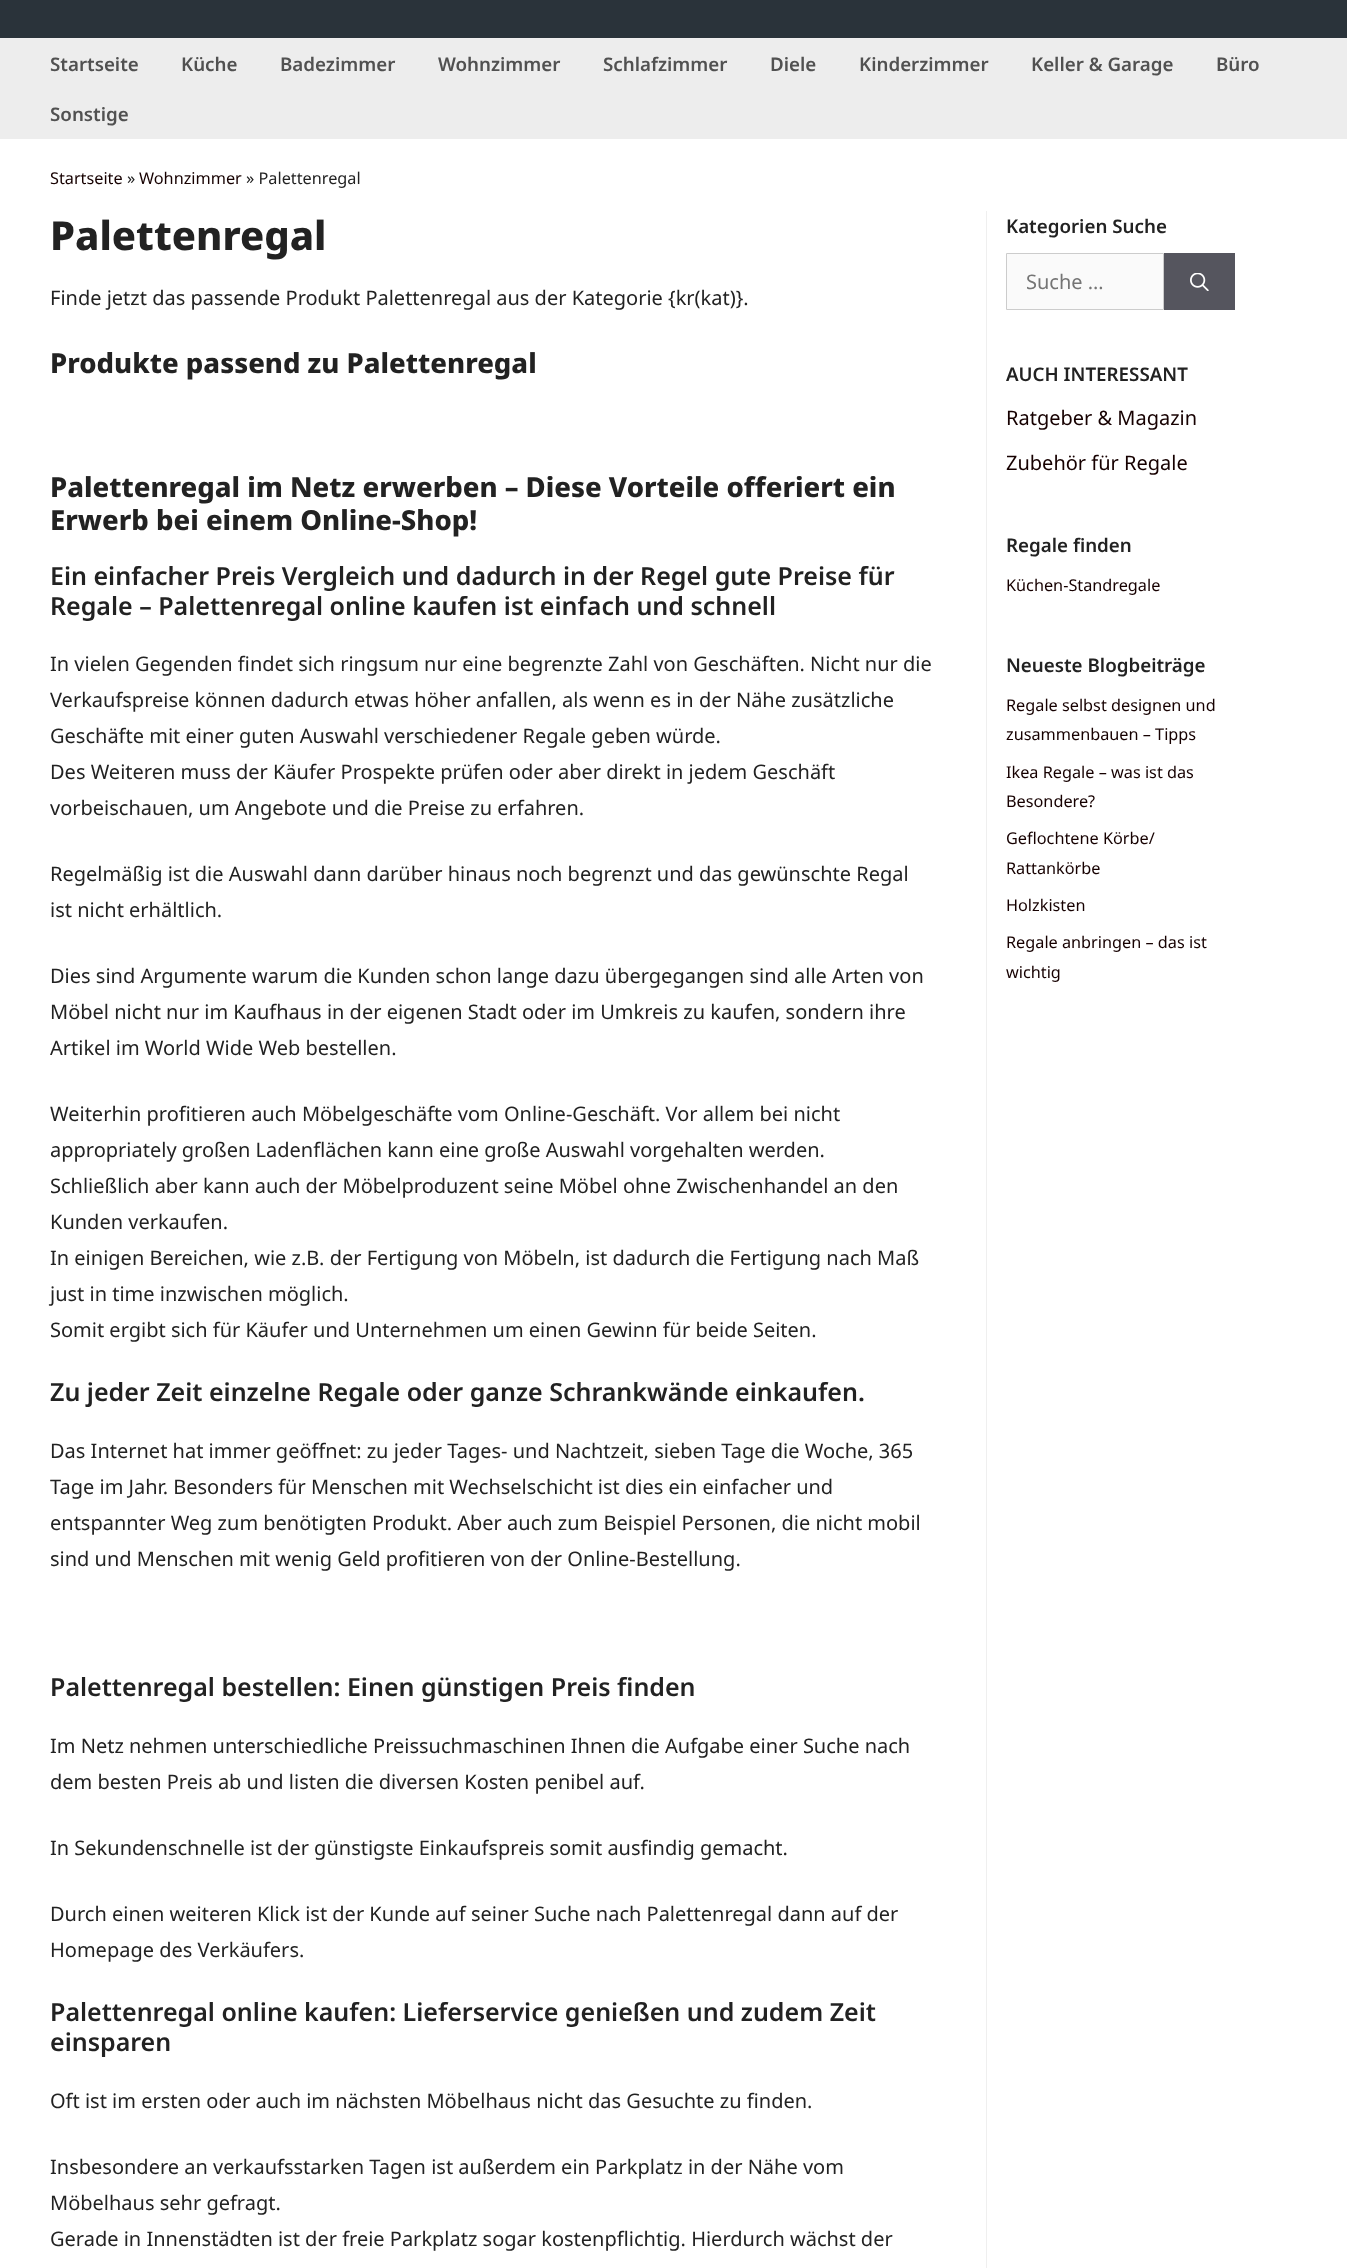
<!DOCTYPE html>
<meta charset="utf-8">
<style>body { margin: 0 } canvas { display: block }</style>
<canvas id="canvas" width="1347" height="2268"></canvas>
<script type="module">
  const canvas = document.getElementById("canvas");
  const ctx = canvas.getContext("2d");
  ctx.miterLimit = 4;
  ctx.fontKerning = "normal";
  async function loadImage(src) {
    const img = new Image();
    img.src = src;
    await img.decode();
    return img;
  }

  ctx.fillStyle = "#ffffff";
  ctx.fillRect(0, 0, 1347, 2268);
  ctx.fillStyle = "#2a333a";
  ctx.fillRect(0, 0, 1347, 38);
  ctx.fillStyle = "#efefef";
  ctx.fillRect(0, 38, 1347, 1);
  ctx.fillStyle = "#ededed";
  ctx.fillRect(0, 39, 1347, 100);
  ctx.font = "600 18.75px Noto Sans";
  ctx.fillStyle = "#515151";
  ctx.fillText("Startseite", 50, 71);
  ctx.fillText("Küche", 181, 71);
  ctx.fillText("Badezimmer", 280, 71);
  ctx.fillText("Wohnzimmer", 438, 71);
  ctx.fillText("Schlafzimmer", 603, 71);
  ctx.fillText("Diele", 770, 71);
  ctx.fillText("Kinderzimmer", 859, 71);
  ctx.fillText("Keller & Garage", 1031, 71);
  ctx.fillText("Büro", 1216, 71);
  ctx.fillText("Sonstige", 50, 121);
  ctx.font = "16.25px Noto Sans";
  ctx.fillStyle = "#160000";
  ctx.fillText("Startseite", 50, 184);
  ctx.fillStyle = "#222222";
  ctx.fillText("»", 127, 184);
  ctx.fillStyle = "#160000";
  ctx.fillText("Wohnzimmer", 139, 184);
  ctx.fillStyle = "#222222";
  ctx.fillText("» Palettenregal", 246, 184);
  ctx.font = "800 40px Noto Sans";
  ctx.fillText("Palettenregal", 50, 250);
  ctx.font = "20px Noto Sans";
  ctx.fillText("Finde jetzt das passende Produkt Palettenregal aus der Kategorie {kr(kat)}.", 50, 305);
  ctx.font = "800 27.5px Noto Sans";
  ctx.fillText("Produkte passend zu Palettenregal", 50, 373);
  ctx.fillText("Palettenregal im Netz erwerben – Diese Vorteile offeriert ein", 50, 497);
  ctx.fillText("Erwerb bei einem Online-Shop!", 50, 530);
  ctx.font = "600 25px Noto Sans";
  ctx.fillText("Ein einfacher Preis Vergleich und dadurch in der Regel gute Preise für", 50, 585);
  ctx.fillText("Regale – Palettenregal online kaufen ist einfach und schnell", 50, 615);
  ctx.font = "20px Noto Sans";
  ctx.fillText("In vielen Gegenden findet sich ringsum nur eine begrenzte Zahl von Geschäften. Nicht nur die", 50, 671);
  ctx.fillText("Verkaufspreise können dadurch etwas höher anfallen, als wenn es in der Nähe zusätzliche", 50, 707);
  ctx.fillText("Geschäfte mit einer guten Auswahl verschiedener Regale geben würde.", 50, 743);
  ctx.fillText("Des Weiteren muss der Käufer Prospekte prüfen oder aber direkt in jedem Geschäft", 50, 779);
  ctx.fillText("vorbeischauen, um Angebote und die Preise zu erfahren.", 50, 815);
  ctx.fillText("Regelmäßig ist die Auswahl dann darüber hinaus noch begrenzt und das gewünschte Regal", 50, 881);
  ctx.fillText("ist nicht erhältlich.", 50, 917);
  ctx.fillText("Dies sind Argumente warum die Kunden schon lange dazu übergegangen sind alle Arten von", 50, 983);
  ctx.fillText("Möbel nicht nur im Kaufhaus in der eigenen Stadt oder im Umkreis zu kaufen, sondern ihre", 50, 1019);
  ctx.fillText("Artikel im World Wide Web bestellen.", 50, 1055);
  ctx.fillText("Weiterhin profitieren auch Möbelgeschäfte vom Online-Geschäft. Vor allem bei nicht", 50, 1121);
  ctx.fillText("appropriately großen Ladenflächen kann eine große Auswahl vorgehalten werden.", 50, 1157);
  ctx.fillText("Schließlich aber kann auch der Möbelproduzent seine Möbel ohne Zwischenhandel an den", 50, 1193);
  ctx.fillText("Kunden verkaufen.", 50, 1229);
  ctx.fillText("In einigen Bereichen, wie z.B. der Fertigung von Möbeln, ist dadurch die Fertigung nach Maß", 50, 1265);
  ctx.fillText("just in time inzwischen möglich.", 50, 1301);
  ctx.fillText("Somit ergibt sich für Käufer und Unternehmen um einen Gewinn für beide Seiten.", 50, 1337);
  ctx.font = "600 25px Noto Sans";
  ctx.fillText("Zu jeder Zeit einzelne Regale oder ganze Schrankwände einkaufen.", 50, 1401);
  ctx.font = "20px Noto Sans";
  ctx.fillText("Das Internet hat immer geöffnet: zu jeder Tages- und Nachtzeit, sieben Tage die Woche, 365", 50, 1458);
  ctx.fillText("Tage im Jahr. Besonders für Menschen mit Wechselschicht ist dies ein einfacher und", 50, 1494);
  ctx.fillText("entspannter Weg zum benötigten Produkt. Aber auch zum Beispiel Personen, die nicht mobil", 50, 1530);
  ctx.fillText("sind und Menschen mit wenig Geld profitieren von der Online-Bestellung.", 50, 1566);
  ctx.font = "600 25px Noto Sans";
  ctx.fillText("Palettenregal bestellen: Einen günstigen Preis finden", 50, 1696);
  ctx.font = "20px Noto Sans";
  ctx.fillText("Im Netz nehmen unterschiedliche Preissuchmaschinen Ihnen die Aufgabe einer Suche nach", 50, 1753);
  ctx.fillText("dem besten Preis ab und listen die diversen Kosten penibel auf.", 50, 1789);
  ctx.fillText("In Sekundenschnelle ist der günstigste Einkaufspreis somit ausfindig gemacht.", 50, 1855);
  ctx.fillText("Durch einen weiteren Klick ist der Kunde auf seiner Suche nach Palettenregal dann auf der", 50, 1921);
  ctx.fillText("Homepage des Verkäufers.", 50, 1957);
  ctx.font = "600 25px Noto Sans";
  ctx.fillText("Palettenregal online kaufen: Lieferservice genießen und zudem Zeit", 50, 2021);
  ctx.fillText("einsparen", 50, 2051);
  ctx.font = "20px Noto Sans";
  ctx.fillText("Oft ist im ersten oder auch im nächsten Möbelhaus nicht das Gesuchte zu finden.", 50, 2108);
  ctx.fillText("Insbesondere an verkaufsstarken Tagen ist außerdem ein Parkplatz in der Nähe vom", 50, 2174);
  ctx.fillText("Möbelhaus sehr gefragt.", 50, 2210);
  ctx.fillText("Gerade in Innenstädten ist der freie Parkplatz sogar kostenpflichtig. Hierdurch wächst der", 50, 2246);
  ctx.fillStyle = "#efefef";
  ctx.fillRect(986, 211, 1, 2057);
  ctx.font = "600 18.75px Noto Sans";
  ctx.fillStyle = "#222222";
  ctx.fillText("Kategorien Suche", 1006, 233);
  ctx.fillStyle = "#fafafa";
  ctx.beginPath();
  ctx.rect(1006.5, 253.5, 157, 56);
  ctx.fill();
  ctx.strokeStyle = "#cccccc";
  ctx.stroke();
  ctx.font = "20px Noto Sans";
  ctx.fillStyle = "#757575";
  ctx.fillText("Suche …", 1026, 289);
  ctx.fillStyle = "#55555e";
  ctx.fillRect(1164, 253, 71, 57);
  ctx.drawImage(await loadImage("img1.png"), 1190, 273, 19, 18);
  ctx.font = "600 18.75px Noto Sans";
  ctx.fillStyle = "#222222";
  ctx.fillText("AUCH INTERESSANT", 1006, 381);
  ctx.font = "20px Noto Sans";
  ctx.fillStyle = "#160000";
  ctx.fillText("Ratgeber & Magazin", 1006, 425);
  ctx.fillText("Zubehör für Regale", 1006, 470);
  ctx.font = "600 18.75px Noto Sans";
  ctx.fillStyle = "#222222";
  ctx.fillText("Regale finden", 1006, 552);
  ctx.font = "16.25px Noto Sans";
  ctx.fillStyle = "#160000";
  ctx.fillText("Küchen-Standregale", 1006, 591);
  ctx.font = "600 18.75px Noto Sans";
  ctx.fillStyle = "#222222";
  ctx.fillText("Neueste Blogbeiträge", 1006, 672);
  ctx.font = "16.25px Noto Sans";
  ctx.fillStyle = "#160000";
  ctx.fillText("Regale selbst designen und", 1006, 711);
  ctx.fillText("zusammenbauen – Tipps", 1006, 740);
  ctx.fillText("Ikea Regale – was ist das", 1006, 778);
  ctx.fillText("Besondere?", 1006, 807);
  ctx.fillText("Geflochtene Körbe/", 1006, 844);
  ctx.fillText("Rattankörbe", 1006, 874);
  ctx.fillText("Holzkisten", 1006, 911);
  ctx.fillText("Regale anbringen – das ist", 1006, 948);
  ctx.fillText("wichtig", 1006, 978);
</script>
